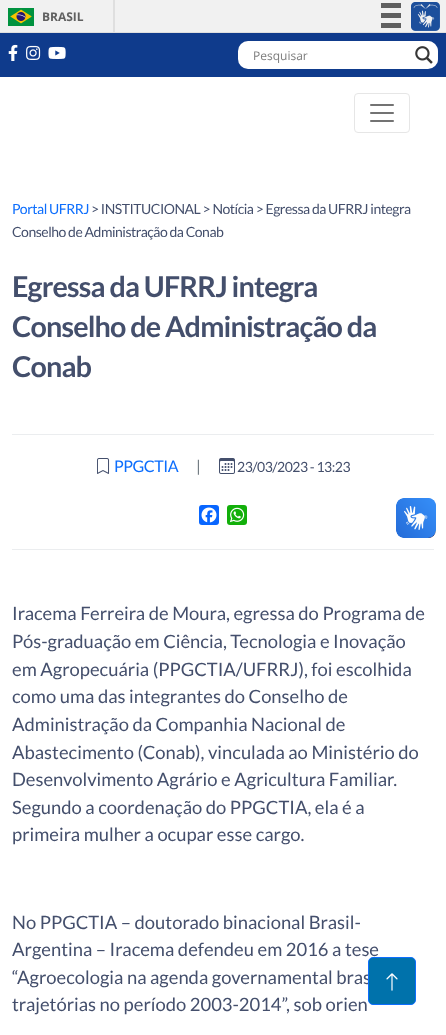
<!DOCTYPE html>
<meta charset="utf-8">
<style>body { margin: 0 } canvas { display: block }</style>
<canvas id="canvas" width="446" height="1035"></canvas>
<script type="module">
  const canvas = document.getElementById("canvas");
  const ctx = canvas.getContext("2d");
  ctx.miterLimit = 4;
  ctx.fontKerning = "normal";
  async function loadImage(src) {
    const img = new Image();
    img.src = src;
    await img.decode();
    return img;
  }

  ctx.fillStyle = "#ffffff";
  ctx.fillRect(0, 0, 446, 1035);
  ctx.fillStyle = "#f1f1f1";
  ctx.fillRect(0, 0, 446, 32);
  ctx.fillStyle = "#dfdfdf";
  ctx.fillRect(0, 32, 446, 1);
  ctx.fillRect(113, 0, 2, 32);
  ctx.drawImage(await loadImage("img1.png"), 8, 8, 26, 18);
  ctx.font = "bold 12px Open Sans";
  ctx.fillStyle = "#606060";
  ctx.fillText("BRASIL", 42, 21);
  ctx.fillRect(381, 3, 20, 5);
  ctx.fillRect(381, 13, 20, 5);
  ctx.fillRect(381, 23, 20, 5);
  ctx.drawImage(await loadImage("img2.png"), 411, 2, 29, 29);
  ctx.fillStyle = "#0f3b8c";
  ctx.fillRect(0, 33, 446, 44);
  ctx.drawImage(await loadImage("img3.png"), 8, 44, 10, 17);
  ctx.drawImage(await loadImage("img4.png"), 26, 45, 15, 15);
  ctx.drawImage(await loadImage("img5.png"), 48, 46, 18, 13);
  ctx.fillStyle = "#ffffff";
  ctx.beginPath();
  ctx.roundRect(238, 41, 200, 28, 10);
  ctx.fill();
  ctx.font = "12px Open Sans";
  ctx.fillStyle = "#7d7d7d";
  ctx.fillText("Pesquisar", 253, 60);
  ctx.save();
  ctx.beginPath();
  ctx.rect(410, 41, 28, 28);
  ctx.clip();
  ctx.fillStyle = "rgba(255, 255, 255, 0.64)";
  ctx.beginPath();
  ctx.moveTo(409, 42);
  ctx.lineTo(409, 69);
  ctx.lineTo(311, 69);
  ctx.lineTo(311, 41);
  ctx.lineTo(428, 41);
  ctx.lineTo(432, 42);
  ctx.closePath();
  ctx.moveTo(437, 63);
  ctx.bezierCurveTo(439, 60, 439, 50, 437, 47);
  ctx.closePath();
  ctx.fill("evenodd");
  ctx.restore();
  ctx.drawImage(await loadImage("img6.png"), 415, 46, 18, 18);
  ctx.beginPath();
  ctx.roundRect(354.5, 93.5, 55, 39, 3.5);
  ctx.strokeStyle = "#e6e6e6";
  ctx.stroke();
  ctx.drawImage(await loadImage("img7.png"), 370, 104, 24, 18);
  ctx.letterSpacing = "-0.48px";
  ctx.font = "14px Lato";
  ctx.fillStyle = "#0d6efd";
  ctx.fillText("Portal UFRRJ", 12, 214);
  ctx.fillStyle = "#444f6c";
  ctx.fillText("> INSTITUCIONAL > Notícia > Egressa da UFRRJ integra", 91, 214);
  ctx.fillText("Conselho de Administração da Conab", 12, 237);
  ctx.letterSpacing = "-0.85px";
  ctx.font = "bold 28.75px Lato";
  ctx.fillText("Egressa da UFRRJ integra", 12, 297);
  ctx.fillText("Conselho de Administração da", 12, 337);
  ctx.fillText("Conab", 12, 377);
  ctx.fillStyle = "#ebedef";
  ctx.fillRect(12, 434, 422, 1);
  ctx.fillRect(12, 549, 422, 1);
  ctx.drawImage(await loadImage("img8.png"), 97, 458, 13, 16);
  ctx.letterSpacing = "-0.48px";
  ctx.font = "16px Lato";
  ctx.fillStyle = "#0d6efd";
  ctx.fillText("PPGCTIA", 114, 472);
  ctx.fillStyle = "#6c757d";
  ctx.fillText("|", 196, 472);
  ctx.drawImage(await loadImage("img9.png"), 219, 458, 16, 16);
  ctx.font = "14px Lato";
  ctx.fillStyle = "#444f6c";
  ctx.fillText("23/03/2023 - 13:23", 237, 472);
  ctx.fillStyle = "#0866ff";
  ctx.beginPath();
  ctx.roundRect(199, 505, 20, 20, 3);
  ctx.fill();
  ctx.drawImage(await loadImage("img10.png"), 201, 507, 16, 16);
  ctx.fillStyle = "#12af0a";
  ctx.beginPath();
  ctx.roundRect(227, 505, 20, 20, 3);
  ctx.fill();
  ctx.drawImage(await loadImage("img11.png"), 229, 507, 16, 16);
  ctx.letterSpacing = "0px";
  ctx.font = "18.4px Lato";
  ctx.fillStyle = "#444f6c";
  ctx.fillText("Iracema Ferreira de Moura, egressa do Programa de", 12, 620);
  ctx.fillText("Pós-graduação em Ciência, Tecnologia e Inovação", 12, 648);
  ctx.fillText("em Agropecuária (PPGCTIA/UFRRJ), foi escolhida", 12, 676);
  ctx.fillText("como uma das integrantes do Conselho de", 12, 703);
  ctx.fillText("Administração da Companhia Nacional de", 12, 731);
  ctx.fillText("Abastecimento (Conab), vinculada ao Ministério do", 12, 759);
  ctx.fillText("Desenvolvimento Agrário e Agricultura Familiar.", 12, 786);
  ctx.fillText("Segundo a coordenação do PPGCTIA, ela é a", 12, 814);
  ctx.fillText("primeira mulher a ocupar esse cargo.", 12, 841);
  ctx.fillText("No PPGCTIA – doutorado binacional Brasil-", 12, 929);
  ctx.fillText("Argentina – Iracema defendeu em 2016 a tese", 12, 956);
  ctx.fillText("“Agroecologia na agenda governamental bras", 12, 984);
  ctx.fillText("trajetórias no período 2003-2014”, sob orien", 12, 1011);
  ctx.drawImage(await loadImage("img12.png"), 396, 498, 40, 40);
  ctx.drawImage(await loadImage("img13.png"), 396, 498, 40, 40);
  ctx.fillStyle = "#0072ab";
  ctx.beginPath();
  ctx.roundRect(368.5, 957.5, 47, 47, 4.5);
  ctx.fill();
  ctx.strokeStyle = "#0d6efd";
  ctx.stroke();
  ctx.drawImage(await loadImage("img14.png"), 386, 973, 12, 18);
</script>
